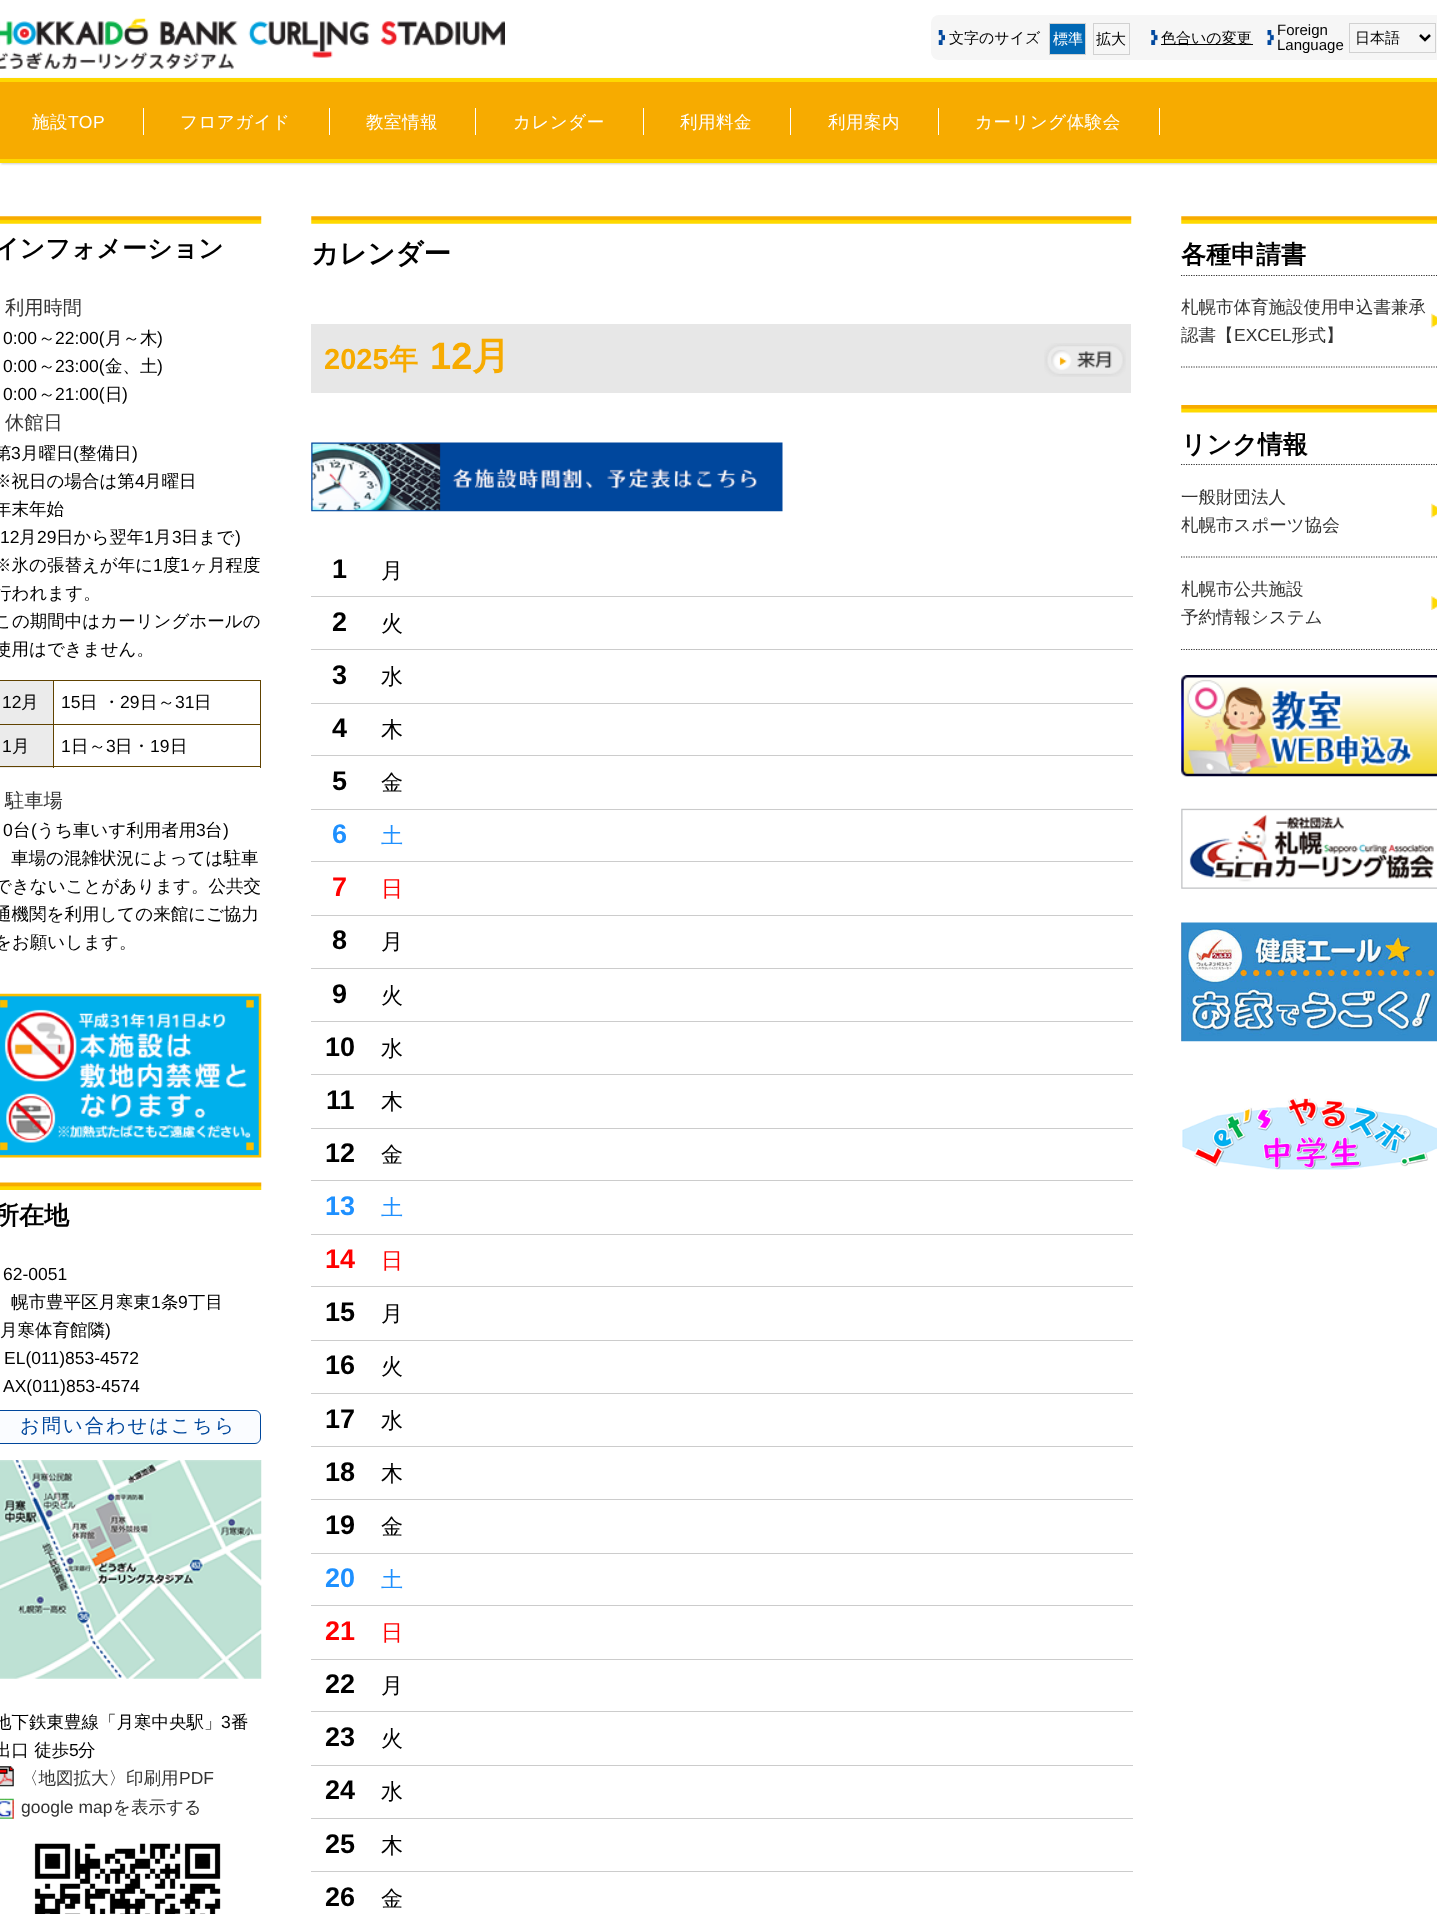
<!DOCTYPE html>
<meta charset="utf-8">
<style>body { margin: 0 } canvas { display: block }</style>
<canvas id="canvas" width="1437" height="1914"></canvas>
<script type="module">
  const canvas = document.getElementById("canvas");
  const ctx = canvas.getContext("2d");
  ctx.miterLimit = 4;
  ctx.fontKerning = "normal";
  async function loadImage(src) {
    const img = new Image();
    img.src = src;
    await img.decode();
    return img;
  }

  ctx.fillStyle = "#ffffff";
  ctx.fillRect(0, 0, 1437, 1914);
  ctx.drawImage(await loadImage("img1.png"), 0, 18, 505, 51);
  ctx.fillStyle = "#f6f6f6";
  ctx.beginPath();
  ctx.roundRect(931, 15, 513, 45, 8);
  ctx.fill();
  ctx.drawImage(await loadImage("img2.png"), 938, 30, 7, 15);
  ctx.font = "500 15px WenQuanYi Zen Hei";
  ctx.fillStyle = "#000000";
  ctx.fillText("文字のサイズ", 949, 43);
  ctx.fillStyle = "#0068b5";
  ctx.beginPath();
  ctx.rect(1049.5, 23.5, 36, 31);
  ctx.fill();
  ctx.strokeStyle = "#d1d1d1";
  ctx.stroke();
  ctx.fillStyle = "#ffffff";
  ctx.fillText("標準", 1053, 44);
  ctx.strokeRect(1093.5, 23.5, 36, 31);
  ctx.fillStyle = "#000000";
  ctx.fillText("拡大", 1096, 44);
  ctx.drawImage(await loadImage("img3.png"), 1151, 30, 7, 15);
  ctx.fillRect(1161, 44, 92, 1);
  ctx.fillText("色合いの変更", 1161, 43);
  ctx.drawImage(await loadImage("img4.png"), 1267, 30, 7, 15);
  ctx.font = "15px Liberation Sans";
  ctx.fillText("Foreign", 1277, 35);
  ctx.fillText("Language", 1277, 50);
  ctx.strokeRect(1349.5, 23.5, 86, 29);
  ctx.beginPath();
  ctx.moveTo(1420, 35);
  ctx.lineTo(1425, 40);
  ctx.lineTo(1430, 35);
  ctx.strokeStyle = "#000000";
  ctx.lineWidth = 2.5;
  ctx.stroke();
  ctx.font = "500 15px WenQuanYi Zen Hei";
  ctx.fillText("日本語", 1355, 43);
  ctx.fillStyle = "#cccccc";
  ctx.filter = "blur(1px)";
  ctx.beginPath();
  ctx.rect(1, 79, 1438, 85);
  ctx.fill();
  ctx.filter = "none";
  ctx.fillStyle = "#f7ab00";
  ctx.fillRect(0, 82, 1437, 77);
  ctx.fillStyle = "#fed901";
  ctx.fillRect(0, 78, 1437, 4);
  ctx.fillRect(0, 159, 1437, 4);
  ctx.fillStyle = "#ffffff";
  ctx.fillRect(143, 108, 1, 27);
  ctx.letterSpacing = "0.5px";
  ctx.font = "500 17.5px WenQuanYi Zen Hei";
  ctx.fillText("施設", 32, 128);
  ctx.font = "17.5px Liberation Sans";
  ctx.fillText("TOP", 68, 128);
  ctx.fillRect(329, 108, 1, 27);
  ctx.font = "500 17.5px WenQuanYi Zen Hei";
  ctx.fillText("フロアガイド", 180, 128);
  ctx.fillRect(475, 108, 1, 27);
  ctx.fillText("教室情報", 366, 128);
  ctx.fillRect(643, 108, 1, 27);
  ctx.fillText("カレンダー", 513, 128);
  ctx.fillRect(790, 108, 1, 27);
  ctx.fillText("利用料金", 680, 128);
  ctx.fillRect(938, 108, 1, 27);
  ctx.fillText("利用案内", 828, 128);
  ctx.fillRect(1159, 108, 1, 27);
  ctx.fillText("カーリング体験会", 975, 128);
  ctx.drawImage(await loadImage("img5.png"), 0, 216, 262, 8);
  ctx.letterSpacing = "0px";
  ctx.font = "bold 25px WenQuanYi Zen Hei";
  ctx.fillStyle = "#000000";
  ctx.fillText("インフォメーション", -6, 257);
  ctx.font = "500 19.25px WenQuanYi Zen Hei";
  ctx.fillStyle = "#333333";
  ctx.fillText("利用時間", 5, 314);
  ctx.font = "17.5px Liberation Sans";
  ctx.fillStyle = "#000000";
  ctx.fillText("0:00", 3, 344);
  ctx.font = "500 17.5px WenQuanYi Zen Hei";
  ctx.fillText("～", 38, 344);
  ctx.font = "17.5px Liberation Sans";
  ctx.fillText("22:00(", 55, 344);
  ctx.font = "500 17.5px WenQuanYi Zen Hei";
  ctx.fillText("月～木", 105, 344);
  ctx.font = "17.5px Liberation Sans";
  ctx.fillText(")", 157, 344);
  ctx.fillText("0:00", 3, 372);
  ctx.font = "500 17.5px WenQuanYi Zen Hei";
  ctx.fillText("～", 38, 372);
  ctx.font = "17.5px Liberation Sans";
  ctx.fillText("23:00(", 55, 372);
  ctx.font = "500 17.5px WenQuanYi Zen Hei";
  ctx.fillText("金、土", 105, 372);
  ctx.font = "17.5px Liberation Sans";
  ctx.fillText(")", 157, 372);
  ctx.fillText("0:00", 3, 400);
  ctx.font = "500 17.5px WenQuanYi Zen Hei";
  ctx.fillText("～", 38, 400);
  ctx.font = "17.5px Liberation Sans";
  ctx.fillText("21:00(", 55, 400);
  ctx.font = "500 17.5px WenQuanYi Zen Hei";
  ctx.fillText("日", 105, 400);
  ctx.font = "17.5px Liberation Sans";
  ctx.fillText(")", 122, 400);
  ctx.font = "500 19.25px WenQuanYi Zen Hei";
  ctx.fillStyle = "#333333";
  ctx.fillText("休館日", 5, 429);
  ctx.font = "500 17.5px WenQuanYi Zen Hei";
  ctx.fillStyle = "#000000";
  ctx.fillText("第", -6, 459);
  ctx.font = "17.5px Liberation Sans";
  ctx.fillText("3", 11, 459);
  ctx.font = "500 17.5px WenQuanYi Zen Hei";
  ctx.fillText("月曜日", 21, 459);
  ctx.font = "17.5px Liberation Sans";
  ctx.fillText("(", 73, 459);
  ctx.font = "500 17.5px WenQuanYi Zen Hei";
  ctx.fillText("整備日", 79, 459);
  ctx.font = "17.5px Liberation Sans";
  ctx.fillText(")", 132, 459);
  ctx.font = "500 17.5px WenQuanYi Zen Hei";
  ctx.fillText("※祝日の場合は第", -6, 487);
  ctx.font = "17.5px Liberation Sans";
  ctx.fillText("4", 135, 487);
  ctx.font = "500 17.5px WenQuanYi Zen Hei";
  ctx.fillText("月曜日", 144, 487);
  ctx.fillText("年末年始", -6, 515);
  ctx.font = "17.5px Liberation Sans";
  ctx.fillText("12", 0, 543);
  ctx.font = "500 17.5px WenQuanYi Zen Hei";
  ctx.fillText("月", 19, 543);
  ctx.font = "17.5px Liberation Sans";
  ctx.fillText("29", 37, 543);
  ctx.font = "500 17.5px WenQuanYi Zen Hei";
  ctx.fillText("日から翌年", 56, 543);
  ctx.font = "17.5px Liberation Sans";
  ctx.fillText("1", 144, 543);
  ctx.font = "500 17.5px WenQuanYi Zen Hei";
  ctx.fillText("月", 154, 543);
  ctx.font = "17.5px Liberation Sans";
  ctx.fillText("3", 172, 543);
  ctx.font = "500 17.5px WenQuanYi Zen Hei";
  ctx.fillText("日まで", 181, 543);
  ctx.font = "17.5px Liberation Sans";
  ctx.fillText(")", 235, 543);
  ctx.font = "500 17.5px WenQuanYi Zen Hei";
  ctx.fillText("※氷の張替えが年に", -6, 571);
  ctx.font = "17.5px Liberation Sans";
  ctx.fillText("1", 153, 571);
  ctx.font = "500 17.5px WenQuanYi Zen Hei";
  ctx.fillText("度", 163, 571);
  ctx.font = "17.5px Liberation Sans";
  ctx.fillText("1", 180, 571);
  ctx.font = "500 17.5px WenQuanYi Zen Hei";
  ctx.fillText("ヶ月程度", 190, 571);
  ctx.fillText("行われます。", -6, 599);
  ctx.fillText("この期間中はカーリングホールの", -6, 627);
  ctx.fillText("使用はできません。", -6, 655);
  ctx.fillStyle = "#604200";
  ctx.fillRect(0, 680, 261, 1);
  ctx.fillStyle = "#ebebeb";
  ctx.fillRect(0, 681, 53, 43);
  ctx.fillStyle = "#604200";
  ctx.fillRect(260, 680, 1, 88);
  ctx.fillRect(53, 766, 208, 1);
  ctx.fillRect(53, 724, 1, 44);
  ctx.fillRect(53, 724, 208, 1);
  ctx.fillRect(53, 680, 1, 45);
  ctx.fillRect(0, 724, 54, 1);
  ctx.font = "17.5px Liberation Sans";
  ctx.fillStyle = "#000000";
  ctx.fillText("12", 2, 708);
  ctx.font = "500 17.5px WenQuanYi Zen Hei";
  ctx.fillText("月", 21, 708);
  ctx.font = "17.5px Liberation Sans";
  ctx.fillText("15", 61, 708);
  ctx.font = "500 17.5px WenQuanYi Zen Hei";
  ctx.fillText("日 ・", 80, 708);
  ctx.font = "17.5px Liberation Sans";
  ctx.fillText("29", 120, 708);
  ctx.font = "500 17.5px WenQuanYi Zen Hei";
  ctx.fillText("日～", 140, 708);
  ctx.font = "17.5px Liberation Sans";
  ctx.fillText("31", 175, 708);
  ctx.font = "500 17.5px WenQuanYi Zen Hei";
  ctx.fillText("日", 194, 708);
  ctx.fillStyle = "#ebebeb";
  ctx.fillRect(0, 725, 53, 43);
  ctx.fillStyle = "#604200";
  ctx.fillRect(0, 766, 54, 1);
  ctx.font = "17.5px Liberation Sans";
  ctx.fillStyle = "#000000";
  ctx.fillText("1", 2, 752);
  ctx.font = "500 17.5px WenQuanYi Zen Hei";
  ctx.fillText("月", 12, 752);
  ctx.font = "17.5px Liberation Sans";
  ctx.fillText("1", 61, 752);
  ctx.font = "500 17.5px WenQuanYi Zen Hei";
  ctx.fillText("日～", 71, 752);
  ctx.font = "17.5px Liberation Sans";
  ctx.fillText("3", 106, 752);
  ctx.font = "500 17.5px WenQuanYi Zen Hei";
  ctx.fillText("日・", 115, 752);
  ctx.font = "17.5px Liberation Sans";
  ctx.fillText("19", 150, 752);
  ctx.font = "500 17.5px WenQuanYi Zen Hei";
  ctx.fillText("日", 170, 752);
  ctx.font = "500 19.25px WenQuanYi Zen Hei";
  ctx.fillStyle = "#333333";
  ctx.fillText("駐車場", 5, 807);
  ctx.font = "17.5px Liberation Sans";
  ctx.fillStyle = "#000000";
  ctx.fillText("0", 3, 836);
  ctx.font = "500 17.5px WenQuanYi Zen Hei";
  ctx.fillText("台", 13, 836);
  ctx.font = "17.5px Liberation Sans";
  ctx.fillText("(", 31, 836);
  ctx.font = "500 17.5px WenQuanYi Zen Hei";
  ctx.fillText("うち車いす利用者用", 37, 836);
  ctx.font = "17.5px Liberation Sans";
  ctx.fillText("3", 196, 836);
  ctx.font = "500 17.5px WenQuanYi Zen Hei";
  ctx.fillText("台", 205, 836);
  ctx.font = "17.5px Liberation Sans";
  ctx.fillText(")", 223, 836);
  ctx.font = "500 17.5px WenQuanYi Zen Hei";
  ctx.fillText("車場の混雑状況によっては駐車", 11, 864);
  ctx.fillText("できないことがあります。公共交", -6, 892);
  ctx.fillText("通機関を利用しての来館にご協力", -6, 920);
  ctx.fillText("をお願いします。", -6, 948);
  ctx.drawImage(await loadImage("img6.png"), 0, 993, 262, 165);
  ctx.drawImage(await loadImage("img7.png"), 0, 1182, 262, 8);
  ctx.font = "bold 25px WenQuanYi Zen Hei";
  ctx.fillText("所在地", -6, 1224);
  ctx.font = "17.5px Liberation Sans";
  ctx.fillText("62-0051", 3, 1280);
  ctx.font = "500 17.5px WenQuanYi Zen Hei";
  ctx.fillText("幌市豊平区月寒東", 11, 1308);
  ctx.font = "17.5px Liberation Sans";
  ctx.fillText("1", 151, 1308);
  ctx.font = "500 17.5px WenQuanYi Zen Hei";
  ctx.fillText("条", 161, 1308);
  ctx.font = "17.5px Liberation Sans";
  ctx.fillText("9", 178, 1308);
  ctx.font = "500 17.5px WenQuanYi Zen Hei";
  ctx.fillText("丁目", 188, 1308);
  ctx.fillText("月寒体育館隣", 0, 1336);
  ctx.font = "17.5px Liberation Sans";
  ctx.fillText(")", 105, 1336);
  ctx.fillText("EL(011)853-4572", 4, 1364);
  ctx.fillText("AX(011)853-4574", 3, 1392);
  ctx.fillStyle = "#fafcff";
  ctx.beginPath();
  ctx.roundRect(-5.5, 1410.5, 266, 33, 5.5);
  ctx.fill();
  ctx.strokeStyle = "#00479c";
  ctx.lineWidth = 1;
  ctx.stroke();
  ctx.letterSpacing = "2px";
  ctx.font = "500 19.25px WenQuanYi Zen Hei";
  ctx.fillStyle = "#00479c";
  ctx.fillText("お問い合わせはこちら", 20, 1432);
  ctx.drawImage(await loadImage("img8.png"), 0, 1460, 262, 219);
  ctx.letterSpacing = "0px";
  ctx.font = "500 17.5px WenQuanYi Zen Hei";
  ctx.fillStyle = "#000000";
  ctx.fillText("地下鉄東豊線「月寒中央駅」", -6, 1728);
  ctx.font = "17.5px Liberation Sans";
  ctx.fillText("3", 221, 1728);
  ctx.font = "500 17.5px WenQuanYi Zen Hei";
  ctx.fillText("番", 231, 1728);
  ctx.fillText("出口 徒歩", -6, 1756);
  ctx.font = "17.5px Liberation Sans";
  ctx.fillText("5", 69, 1756);
  ctx.font = "500 17.5px WenQuanYi Zen Hei";
  ctx.fillText("分", 78, 1756);
  ctx.drawImage(await loadImage("img9.png"), 0, 1766, 14, 21);
  ctx.fillStyle = "#333333";
  ctx.fillText("〈地図拡大〉印刷用", 21, 1784);
  ctx.font = "17.5px Liberation Sans";
  ctx.fillText("PDF", 179, 1784);
  ctx.drawImage(await loadImage("img10.png"), 0, 1798, 14, 21);
  ctx.fillText("google map", 21, 1813);
  ctx.font = "500 17.5px WenQuanYi Zen Hei";
  ctx.fillText("を表示する", 113, 1813);
  ctx.drawImage(await loadImage("img11.png"), 34, 1843, 187, 71);
  ctx.drawImage(await loadImage("img12.png"), 311, 216, 821, 8);
  ctx.font = "bold 27.5px WenQuanYi Zen Hei";
  ctx.fillStyle = "#000000";
  ctx.fillText("カレンダー", 311, 263);
  ctx.fillStyle = "#e7e7e7";
  ctx.fillRect(311, 324, 820, 69);
  ctx.font = "bold 29px Liberation Sans";
  ctx.fillStyle = "#f7ab00";
  ctx.fillText("2025", 324, 369);
  ctx.font = "bold 29px WenQuanYi Zen Hei";
  ctx.fillText("年", 389, 369);
  ctx.font = "bold 38px Liberation Sans";
  ctx.fillText("12", 430, 369);
  ctx.font = "bold 38px WenQuanYi Zen Hei";
  ctx.fillText("月", 472, 369);
  ctx.drawImage(await loadImage("img13.png"), 1044, 343, 82, 34);
  ctx.drawImage(await loadImage("img14.png"), 311, 442, 472, 70);
  ctx.font = "bold 27px Liberation Sans";
  ctx.fillStyle = "#000000";
  ctx.fillText("1", 332, 578);
  ctx.font = "500 22px WenQuanYi Zen Hei";
  ctx.fillText("月", 381, 578);
  ctx.fillStyle = "#cccccc";
  ctx.fillRect(311, 596, 822, 1);
  ctx.font = "bold 27px Liberation Sans";
  ctx.fillStyle = "#000000";
  ctx.fillText("2", 332, 631);
  ctx.font = "500 22px WenQuanYi Zen Hei";
  ctx.fillText("火", 381, 631);
  ctx.fillStyle = "#cccccc";
  ctx.fillRect(311, 649, 822, 1);
  ctx.font = "bold 27px Liberation Sans";
  ctx.fillStyle = "#000000";
  ctx.fillText("3", 332, 684);
  ctx.font = "500 22px WenQuanYi Zen Hei";
  ctx.fillText("水", 381, 684);
  ctx.fillStyle = "#cccccc";
  ctx.fillRect(311, 703, 822, 1);
  ctx.font = "bold 27px Liberation Sans";
  ctx.fillStyle = "#000000";
  ctx.fillText("4", 332, 737);
  ctx.font = "500 22px WenQuanYi Zen Hei";
  ctx.fillText("木", 381, 737);
  ctx.fillStyle = "#cccccc";
  ctx.fillRect(311, 755, 822, 1);
  ctx.font = "bold 27px Liberation Sans";
  ctx.fillStyle = "#000000";
  ctx.fillText("5", 332, 790);
  ctx.font = "500 22px WenQuanYi Zen Hei";
  ctx.fillText("金", 381, 790);
  ctx.fillStyle = "#cccccc";
  ctx.fillRect(311, 809, 822, 1);
  ctx.font = "bold 27px Liberation Sans";
  ctx.fillStyle = "#1e90ff";
  ctx.fillText("6", 332, 843);
  ctx.font = "500 22px WenQuanYi Zen Hei";
  ctx.fillText("土", 381, 843);
  ctx.fillStyle = "#cccccc";
  ctx.fillRect(311, 861, 822, 1);
  ctx.font = "bold 27px Liberation Sans";
  ctx.fillStyle = "#ff0000";
  ctx.fillText("7", 332, 896);
  ctx.font = "500 22px WenQuanYi Zen Hei";
  ctx.fillText("日", 381, 896);
  ctx.fillStyle = "#cccccc";
  ctx.fillRect(311, 915, 822, 1);
  ctx.font = "bold 27px Liberation Sans";
  ctx.fillStyle = "#000000";
  ctx.fillText("8", 332, 949);
  ctx.font = "500 22px WenQuanYi Zen Hei";
  ctx.fillText("月", 381, 949);
  ctx.fillStyle = "#cccccc";
  ctx.fillRect(311, 968, 822, 1);
  ctx.font = "bold 27px Liberation Sans";
  ctx.fillStyle = "#000000";
  ctx.fillText("9", 332, 1003);
  ctx.font = "500 22px WenQuanYi Zen Hei";
  ctx.fillText("火", 381, 1003);
  ctx.fillStyle = "#cccccc";
  ctx.fillRect(311, 1021, 822, 1);
  ctx.font = "bold 27px Liberation Sans";
  ctx.fillStyle = "#000000";
  ctx.fillText("10", 325, 1056);
  ctx.font = "500 22px WenQuanYi Zen Hei";
  ctx.fillText("水", 381, 1056);
  ctx.fillStyle = "#cccccc";
  ctx.fillRect(311, 1074, 822, 1);
  ctx.font = "bold 27px Liberation Sans";
  ctx.fillStyle = "#000000";
  ctx.fillText("11", 326, 1109);
  ctx.font = "500 22px WenQuanYi Zen Hei";
  ctx.fillText("木", 381, 1109);
  ctx.fillStyle = "#cccccc";
  ctx.fillRect(311, 1128, 822, 1);
  ctx.font = "bold 27px Liberation Sans";
  ctx.fillStyle = "#000000";
  ctx.fillText("12", 325, 1162);
  ctx.font = "500 22px WenQuanYi Zen Hei";
  ctx.fillText("金", 381, 1162);
  ctx.fillStyle = "#cccccc";
  ctx.fillRect(311, 1180, 822, 1);
  ctx.font = "bold 27px Liberation Sans";
  ctx.fillStyle = "#1e90ff";
  ctx.fillText("13", 325, 1215);
  ctx.font = "500 22px WenQuanYi Zen Hei";
  ctx.fillText("土", 381, 1215);
  ctx.fillStyle = "#cccccc";
  ctx.fillRect(311, 1234, 822, 1);
  ctx.font = "bold 27px Liberation Sans";
  ctx.fillStyle = "#ff0000";
  ctx.fillText("14", 325, 1268);
  ctx.font = "500 22px WenQuanYi Zen Hei";
  ctx.fillText("日", 381, 1268);
  ctx.fillStyle = "#cccccc";
  ctx.fillRect(311, 1286, 822, 1);
  ctx.font = "bold 27px Liberation Sans";
  ctx.fillStyle = "#000000";
  ctx.fillText("15", 325, 1321);
  ctx.font = "500 22px WenQuanYi Zen Hei";
  ctx.fillText("月", 381, 1321);
  ctx.fillStyle = "#cccccc";
  ctx.fillRect(311, 1340, 822, 1);
  ctx.font = "bold 27px Liberation Sans";
  ctx.fillStyle = "#000000";
  ctx.fillText("16", 325, 1374);
  ctx.font = "500 22px WenQuanYi Zen Hei";
  ctx.fillText("火", 381, 1374);
  ctx.fillStyle = "#cccccc";
  ctx.fillRect(311, 1393, 822, 1);
  ctx.font = "bold 27px Liberation Sans";
  ctx.fillStyle = "#000000";
  ctx.fillText("17", 325, 1428);
  ctx.font = "500 22px WenQuanYi Zen Hei";
  ctx.fillText("水", 381, 1428);
  ctx.fillStyle = "#cccccc";
  ctx.fillRect(311, 1446, 822, 1);
  ctx.font = "bold 27px Liberation Sans";
  ctx.fillStyle = "#000000";
  ctx.fillText("18", 325, 1481);
  ctx.font = "500 22px WenQuanYi Zen Hei";
  ctx.fillText("木", 381, 1481);
  ctx.fillStyle = "#cccccc";
  ctx.fillRect(311, 1499, 822, 1);
  ctx.font = "bold 27px Liberation Sans";
  ctx.fillStyle = "#000000";
  ctx.fillText("19", 325, 1534);
  ctx.font = "500 22px WenQuanYi Zen Hei";
  ctx.fillText("金", 381, 1534);
  ctx.fillStyle = "#cccccc";
  ctx.fillRect(311, 1553, 822, 1);
  ctx.font = "bold 27px Liberation Sans";
  ctx.fillStyle = "#1e90ff";
  ctx.fillText("20", 325, 1587);
  ctx.font = "500 22px WenQuanYi Zen Hei";
  ctx.fillText("土", 381, 1587);
  ctx.fillStyle = "#cccccc";
  ctx.fillRect(311, 1605, 822, 1);
  ctx.font = "bold 27px Liberation Sans";
  ctx.fillStyle = "#ff0000";
  ctx.fillText("21", 325, 1640);
  ctx.font = "500 22px WenQuanYi Zen Hei";
  ctx.fillText("日", 381, 1640);
  ctx.fillStyle = "#cccccc";
  ctx.fillRect(311, 1659, 822, 1);
  ctx.font = "bold 27px Liberation Sans";
  ctx.fillStyle = "#000000";
  ctx.fillText("22", 325, 1693);
  ctx.font = "500 22px WenQuanYi Zen Hei";
  ctx.fillText("月", 381, 1693);
  ctx.fillStyle = "#cccccc";
  ctx.fillRect(311, 1711, 822, 1);
  ctx.font = "bold 27px Liberation Sans";
  ctx.fillStyle = "#000000";
  ctx.fillText("23", 325, 1746);
  ctx.font = "500 22px WenQuanYi Zen Hei";
  ctx.fillText("火", 381, 1746);
  ctx.fillStyle = "#cccccc";
  ctx.fillRect(311, 1765, 822, 1);
  ctx.font = "bold 27px Liberation Sans";
  ctx.fillStyle = "#000000";
  ctx.fillText("24", 325, 1799);
  ctx.font = "500 22px WenQuanYi Zen Hei";
  ctx.fillText("水", 381, 1799);
  ctx.fillStyle = "#cccccc";
  ctx.fillRect(311, 1818, 822, 1);
  ctx.font = "bold 27px Liberation Sans";
  ctx.fillStyle = "#000000";
  ctx.fillText("25", 325, 1853);
  ctx.font = "500 22px WenQuanYi Zen Hei";
  ctx.fillText("木", 381, 1853);
  ctx.fillStyle = "#cccccc";
  ctx.fillRect(311, 1871, 822, 1);
  ctx.font = "bold 27px Liberation Sans";
  ctx.fillStyle = "#000000";
  ctx.fillText("26", 325, 1906);
  ctx.font = "500 22px WenQuanYi Zen Hei";
  ctx.fillText("金", 381, 1906);
  ctx.drawImage(await loadImage("img15.png"), 1181, 216, 256, 8);
  ctx.font = "bold 25px WenQuanYi Zen Hei";
  ctx.fillText("各種申請書", 1181, 263);
  ctx.beginPath();
  ctx.moveTo(1181, 275.5);
  ctx.lineTo(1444, 275.5);
  ctx.strokeStyle = "#333333";
  ctx.lineWidth = 1.2;
  ctx.setLineDash([1.25, 1.25]);
  ctx.stroke();
  ctx.beginPath();
  ctx.moveTo(1181, 367);
  ctx.lineTo(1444, 367);
  ctx.stroke();
  ctx.drawImage(await loadImage("img16.png"), 1431, 313, 6, 15);
  ctx.font = "500 17.5px WenQuanYi Zen Hei";
  ctx.fillStyle = "#333333";
  ctx.fillText("札幌市体育施設使用申込書兼承", 1181, 313);
  ctx.fillText("認書【", 1181, 341);
  ctx.font = "17.5px Liberation Sans";
  ctx.fillText("EXCEL", 1234, 341);
  ctx.font = "500 17.5px WenQuanYi Zen Hei";
  ctx.fillText("形式】", 1291, 341);
  ctx.drawImage(await loadImage("img17.png"), 1181, 405, 256, 8);
  ctx.font = "bold 25px WenQuanYi Zen Hei";
  ctx.fillStyle = "#000000";
  ctx.fillText("リンク情報", 1181, 453);
  ctx.beginPath();
  ctx.moveTo(1181, 464.5);
  ctx.lineTo(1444, 464.5);
  ctx.stroke();
  ctx.beginPath();
  ctx.moveTo(1181, 557);
  ctx.lineTo(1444, 557);
  ctx.stroke();
  ctx.drawImage(await loadImage("img16.png"), 1431, 503, 6, 15);
  ctx.font = "500 17.5px WenQuanYi Zen Hei";
  ctx.fillStyle = "#333333";
  ctx.fillText("一般財団法人", 1181, 503);
  ctx.fillText("札幌市スポーツ協会", 1181, 531);
  ctx.beginPath();
  ctx.moveTo(1181, 649.5);
  ctx.lineTo(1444, 649.5);
  ctx.stroke();
  ctx.drawImage(await loadImage("img18.png"), 1431, 596, 6, 14);
  ctx.fillText("札幌市公共施設", 1181, 595);
  ctx.fillText("予約情報システム", 1181, 623);
  ctx.drawImage(await loadImage("img19.png"), 1181, 675, 256, 102);
  ctx.drawImage(await loadImage("img20.png"), 1181, 808, 256, 81);
  ctx.drawImage(await loadImage("img21.png"), 1181, 922, 256, 120);
  ctx.drawImage(await loadImage("img22.png"), 1182, 1098, 255, 72);
</script>
